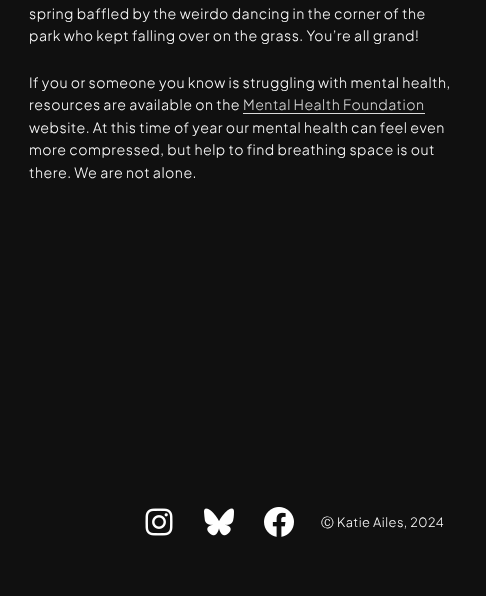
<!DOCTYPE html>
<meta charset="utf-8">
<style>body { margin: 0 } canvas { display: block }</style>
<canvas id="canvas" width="486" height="596"></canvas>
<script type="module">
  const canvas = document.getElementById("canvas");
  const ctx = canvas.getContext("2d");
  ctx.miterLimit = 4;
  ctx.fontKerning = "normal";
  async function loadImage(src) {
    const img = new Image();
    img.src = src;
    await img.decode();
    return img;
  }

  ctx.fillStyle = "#101010";
  ctx.fillRect(0, 0, 486, 596);
  ctx.letterSpacing = "0.48px";
  ctx.font = "300 14.1px Plus Jakarta Sans";
  ctx.fillStyle = "#ffffff";
  ctx.fillText("spring baffled by the weirdo dancing in the corner of the", 29, 19);
  ctx.fillText("park who kept falling over on the grass. You’re all grand!", 29, 41);
  ctx.fillText("If you or someone you know is struggling with mental health,", 29, 88);
  ctx.fillText("resources are available on the", 29, 110);
  ctx.fillStyle = "#dadada";
  ctx.fillText("Mental Health Foundation", 243, 110);
  ctx.fillRect(243, 113, 182, 1);
  ctx.fillStyle = "#ffffff";
  ctx.fillText("website. At this time of year our mental health can feel even", 29, 133);
  ctx.fillText("more compressed, but help to find breathing space is out", 29, 155);
  ctx.fillText("there. We are not alone.", 29, 178);
  ctx.drawImage(await loadImage("img1.png"), 145, 508, 28, 28);
  ctx.drawImage(await loadImage("img2.png"), 204, 508, 30, 28);
  ctx.drawImage(await loadImage("img3.png"), 264, 507, 30, 30);
  ctx.font = "500 12.75px WenQuanYi Zen Hei";
  ctx.fillText("Ⓒ", 321, 527);
  ctx.font = "300 12.75px Plus Jakarta Sans";
  ctx.fillText("Katie Ailes, 2024", 337, 527);
</script>
